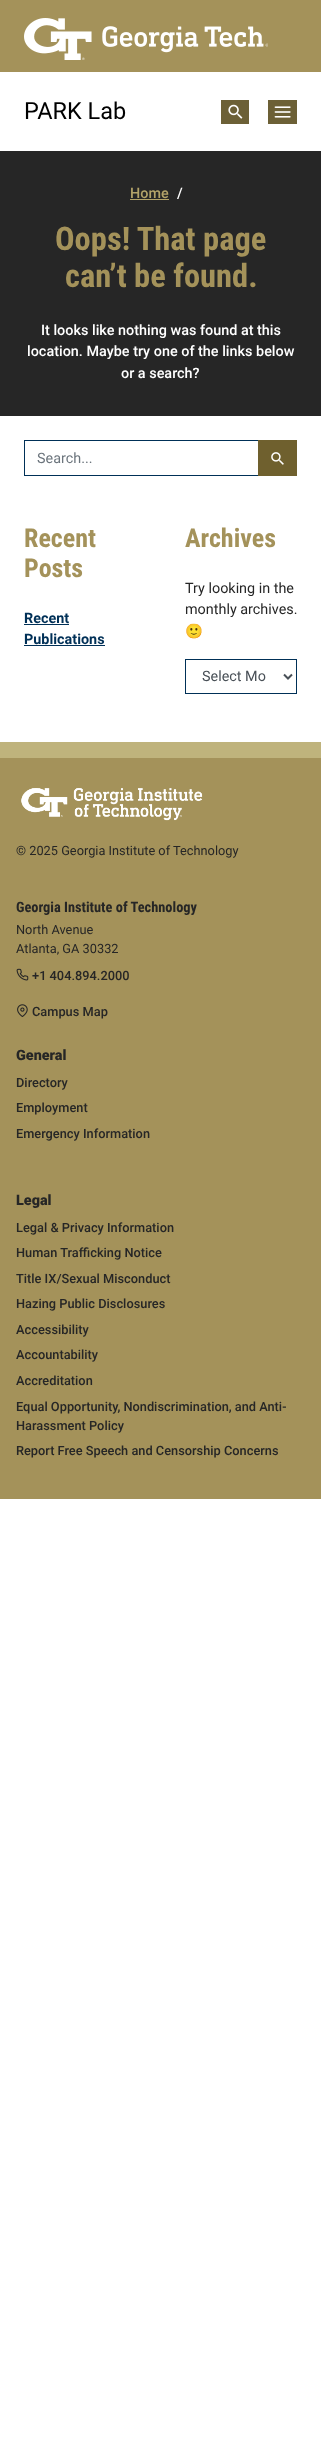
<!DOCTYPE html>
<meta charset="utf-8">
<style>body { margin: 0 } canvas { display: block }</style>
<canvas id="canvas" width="321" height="2452"></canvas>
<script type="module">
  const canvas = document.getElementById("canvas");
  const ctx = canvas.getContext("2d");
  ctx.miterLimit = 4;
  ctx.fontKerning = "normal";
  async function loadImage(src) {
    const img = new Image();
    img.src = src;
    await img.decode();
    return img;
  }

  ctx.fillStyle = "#ffffff";
  ctx.fillRect(0, 0, 321, 2452);
  ctx.fillStyle = "#a4925a";
  ctx.fillRect(0, 0, 321, 72);
  ctx.drawImage(await loadImage("img1.png"), 24, 18, 244, 42);
  ctx.font = "23.5px Roboto";
  ctx.fillStyle = "#000000";
  ctx.fillText("PARK Lab", 24, 119);
  ctx.fillStyle = "#6c6036";
  ctx.fillRect(221, 100, 28, 24);
  ctx.drawImage(await loadImage("img2.png"), 228, 104, 15, 15);
  ctx.fillRect(268, 100, 29, 24);
  ctx.drawImage(await loadImage("img3.png"), 274, 106, 17, 12);
  ctx.fillStyle = "#262626";
  ctx.fillRect(0, 151, 321, 265);
  ctx.font = "500 14.4px Roboto";
  ctx.fillStyle = "#b3a369";
  ctx.fillText("Home", 130, 198);
  ctx.fillRect(130, 199, 39, 1);
  ctx.fillStyle = "#ffffff";
  ctx.fillText("/", 177, 198);
  ctx.font = "bold 32.5px Roboto Condensed";
  ctx.fillStyle = "#a4925a";
  ctx.fillText("Oops! That page", 55, 250);
  ctx.fillText("can’t be found.", 65, 287);
  ctx.font = "500 14.4px Roboto";
  ctx.fillStyle = "#ffffff";
  ctx.fillText("It looks like nothing was found at this", 41, 335);
  ctx.fillText("location. Maybe try one of the links below", 27, 356);
  ctx.fillText("or a search?", 121, 378);
  ctx.strokeStyle = "#003057";
  ctx.strokeRect(24.5, 440.5, 234, 35);
  ctx.font = "14.4px Roboto";
  ctx.fillStyle = "#6c757d";
  ctx.fillText("Search...", 37, 463);
  ctx.fillStyle = "#6f602e";
  ctx.fillRect(258, 440, 39, 36);
  ctx.drawImage(await loadImage("img4.png"), 271, 452, 13, 13);
  ctx.font = "bold 26px Roboto Condensed";
  ctx.fillStyle = "#a4925a";
  ctx.fillText("Recent", 24, 547);
  ctx.fillText("Posts", 24, 577);
  ctx.font = "bold 14.4px Roboto";
  ctx.fillStyle = "#003057";
  ctx.fillText("Recent", 24, 623);
  ctx.fillRect(24, 624, 45, 1);
  ctx.fillText("Publications", 24, 644);
  ctx.fillRect(24, 645, 81, 1);
  ctx.font = "bold 26px Roboto Condensed";
  ctx.fillStyle = "#a4925a";
  ctx.fillText("Archives", 185, 547);
  ctx.font = "14.4px Roboto";
  ctx.fillStyle = "#262626";
  ctx.fillText("Try looking in the", 185, 593);
  ctx.fillText("monthly archives.", 185, 614);
  ctx.font = "14.4px Noto Color Emoji";
  ctx.fillText("🙂", 185, 636);
  ctx.strokeRect(185.5, 659.5, 111, 34);
  ctx.beginPath();
  ctx.moveTo(284, 674.5);
  ctx.lineTo(288, 678.5);
  ctx.lineTo(292, 674.5);
  ctx.strokeStyle = "#495057";
  ctx.lineWidth = 2;
  ctx.stroke();
  ctx.font = "14.4px Roboto";
  ctx.fillStyle = "#495057";
  ctx.fillText("Select Mo", 202, 681);
  ctx.fillStyle = "#a4925a";
  ctx.fillRect(0, 758, 321, 741);
  ctx.fillStyle = "#bfb37c";
  ctx.fillRect(0, 742, 321, 16);
  ctx.drawImage(await loadImage("img5.png"), 21, 788, 182, 33);
  ctx.font = "12.8px Roboto";
  ctx.fillStyle = "#262626";
  ctx.fillText("© 2025 Georgia Institute of Technology", 16, 855);
  ctx.font = "bold 14.4px Roboto Condensed";
  ctx.fillText("Georgia Institute of Technology", 16, 912);
  ctx.font = "12.8px Roboto";
  ctx.fillText("North Avenue", 16, 934);
  ctx.fillText("Atlanta, GA 30332", 16, 953);
  ctx.drawImage(await loadImage("img6.png"), 16, 968, 13, 13);
  ctx.font = "500 12.8px Roboto";
  ctx.fillText("+1 404.894.2000", 32, 980);
  ctx.drawImage(await loadImage("img7.png"), 17, 1004, 11, 13);
  ctx.fillText("Campus Map", 32, 1016);
  ctx.font = "900 14.4px Roboto";
  ctx.fillText("General", 16, 1060);
  ctx.font = "500 12.8px Roboto";
  ctx.fillText("Directory", 16, 1087);
  ctx.fillText("Employment", 16, 1112);
  ctx.fillText("Emergency Information", 16, 1138);
  ctx.font = "900 14.4px Roboto";
  ctx.fillText("Legal", 16, 1205);
  ctx.font = "500 12.8px Roboto";
  ctx.fillText("Legal & Privacy Information", 16, 1232);
  ctx.fillText("Human Trafficking Notice", 16, 1257);
  ctx.fillText("Title IX/Sexual Misconduct", 16, 1283);
  ctx.fillText("Hazing Public Disclosures", 16, 1308);
  ctx.fillText("Accessibility", 16, 1334);
  ctx.fillText("Accountability", 16, 1359);
  ctx.fillText("Accreditation", 16, 1385);
  ctx.fillText("Equal Opportunity, Nondiscrimination, and Anti-", 16, 1411);
  ctx.fillText("Harassment Policy", 16, 1430);
  ctx.fillText("Report Free Speech and Censorship Concerns", 16, 1455);
</script>
